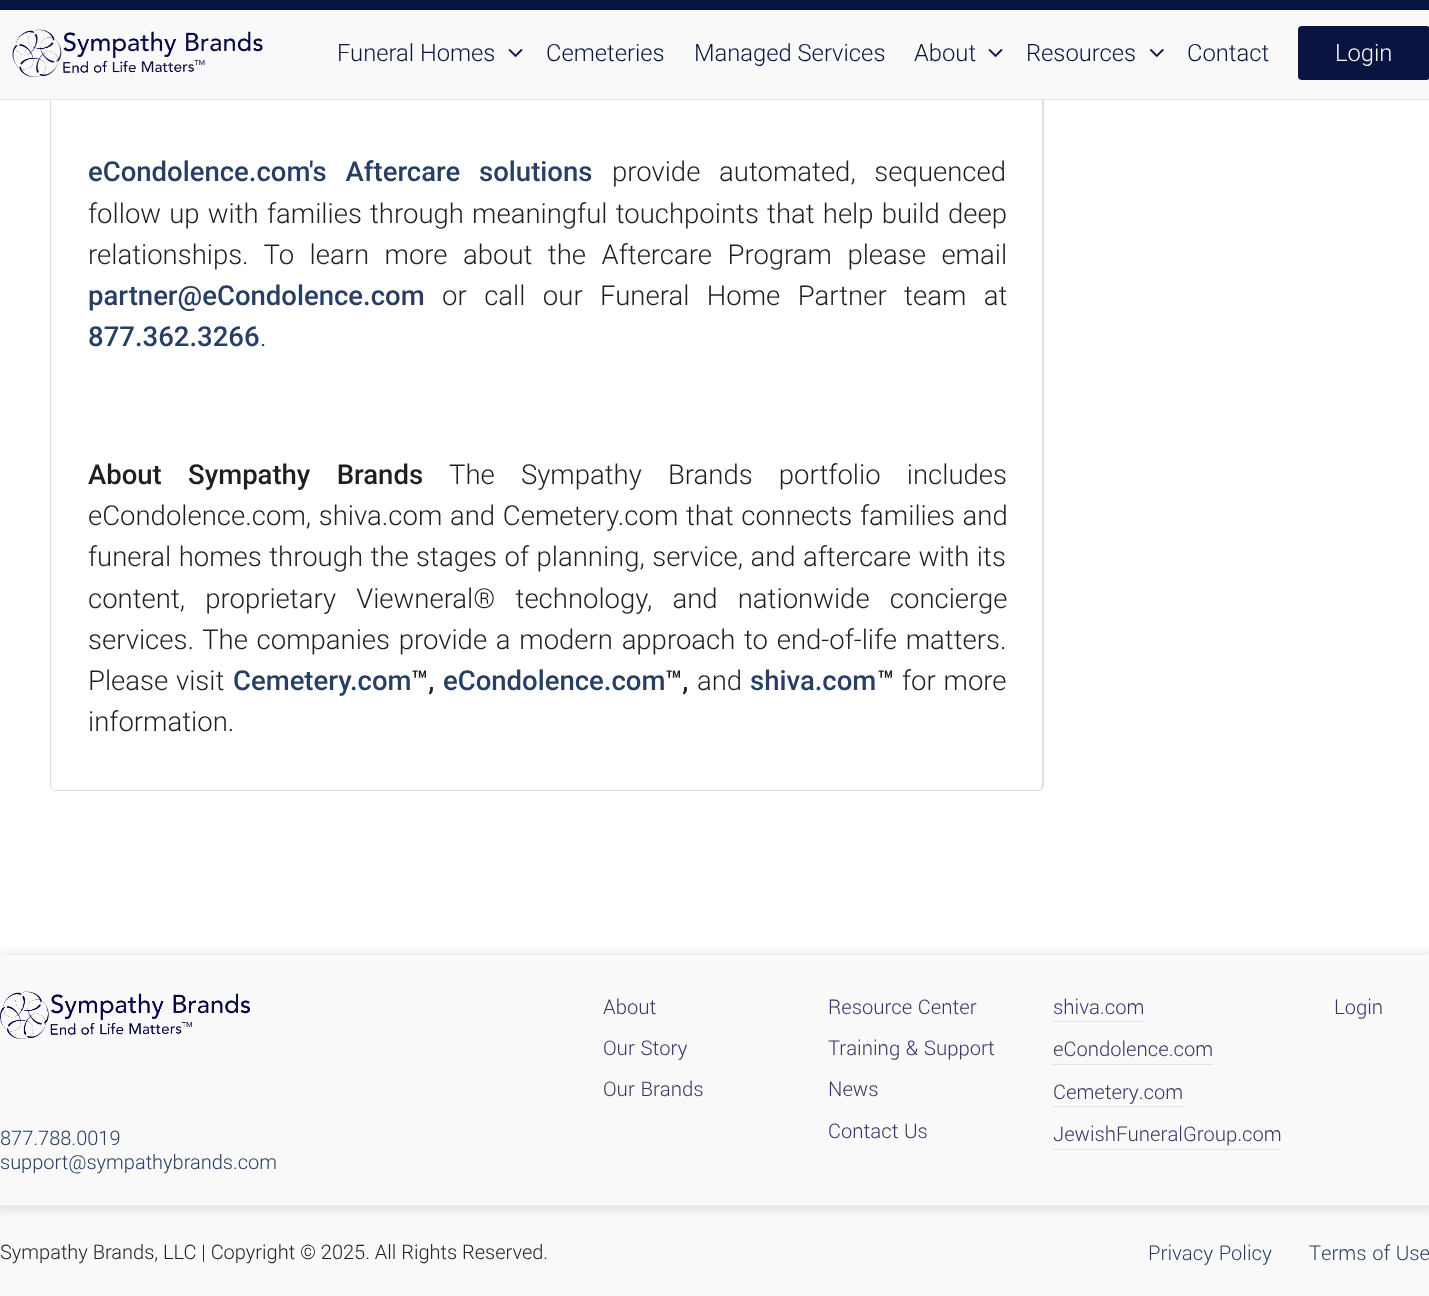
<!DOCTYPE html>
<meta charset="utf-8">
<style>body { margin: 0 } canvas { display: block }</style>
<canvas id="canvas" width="1429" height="1296"></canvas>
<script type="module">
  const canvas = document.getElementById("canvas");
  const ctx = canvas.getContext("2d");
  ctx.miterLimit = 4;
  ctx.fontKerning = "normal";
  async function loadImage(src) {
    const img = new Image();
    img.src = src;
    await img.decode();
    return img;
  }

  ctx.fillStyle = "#ffffff";
  ctx.fillRect(0, 0, 1429, 1296);
  ctx.fillStyle = "#dfdedb";
  ctx.beginPath();
  ctx.moveTo(50, -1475);
  ctx.lineTo(1044, -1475);
  ctx.lineTo(1044, 785);
  ctx.bezierCurveTo(1044, 788, 1041, 791, 1038, 791);
  ctx.lineTo(56, 791);
  ctx.bezierCurveTo(53, 791, 50, 788, 50, 785);
  ctx.closePath();
  ctx.moveTo(51, -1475);
  ctx.lineTo(1042, -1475);
  ctx.lineTo(1042, 785);
  ctx.bezierCurveTo(1042, 788, 1040, 790, 1038, 790);
  ctx.lineTo(56, 790);
  ctx.bezierCurveTo(53, 790, 51, 788, 51, 785);
  ctx.closePath();
  ctx.fill("evenodd");
  ctx.fillStyle = "#f9f9f9";
  ctx.fillRect(0, 10, 1429, 89);
  ctx.fillStyle = "#091540";
  ctx.fillRect(0, 0, 1429, 10);
  ctx.fillStyle = "#e5e5e5";
  ctx.fillRect(0, 99, 1429, 1);
  ctx.drawImage(await loadImage("img1.png"), 12, 29, 251, 48);
  ctx.font = "300 23.75px Roboto";
  ctx.fillStyle = "#091540";
  ctx.fillText("Funeral Homes", 337, 61);
  ctx.drawImage(await loadImage("img2.png"), 508, 49, 15, 8);
  ctx.fillText("Cemeteries", 546, 61);
  ctx.fillText("Managed Services", 694, 61);
  ctx.fillText("About", 914, 61);
  ctx.drawImage(await loadImage("img2.png"), 988, 49, 15, 8);
  ctx.fillText("Resources", 1026, 61);
  ctx.drawImage(await loadImage("img3.png"), 1149, 49, 15, 8);
  ctx.fillText("Contact", 1187, 61);
  ctx.beginPath();
  ctx.roundRect(1298, 26, 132, 54, 4);
  ctx.fill();
  ctx.fillStyle = "#f9f9f9";
  ctx.fillText("Login", 1335, 61);
  ctx.wordSpacing = "12px";
  ctx.font = "500 27.5px Roboto";
  ctx.fillStyle = "#283e63";
  ctx.fillText("eCondolence.com's Aftercare solutions", 88, 181);
  ctx.font = "300 27.5px Roboto";
  ctx.fillStyle = "#231e1e";
  ctx.fillText("provide automated, sequenced", 612, 181);
  ctx.wordSpacing = "1.5px";
  ctx.fillText("follow up with families through meaningful touchpoints that help build deep", 88, 223);
  ctx.wordSpacing = "8.75px";
  ctx.fillText("relationships. To learn more about the Aftercare Program please email", 88, 264);
  ctx.wordSpacing = "0px";
  ctx.font = "500 27.5px Roboto";
  ctx.fillStyle = "#283e63";
  ctx.fillText("partner@eCondolence.com", 88, 305);
  ctx.wordSpacing = "10.75px";
  ctx.font = "300 27.5px Roboto";
  ctx.fillStyle = "#231e1e";
  ctx.fillText("or call our Funeral Home Partner team at", 442, 305);
  ctx.wordSpacing = "0px";
  ctx.font = "500 27.5px Roboto";
  ctx.fillStyle = "#283e63";
  ctx.fillText("877.362.3266", 88, 346);
  ctx.font = "300 27.5px Roboto";
  ctx.fillStyle = "#231e1e";
  ctx.fillText(".", 260, 346);
  ctx.wordSpacing = "19.5px";
  ctx.font = "500 27.5px Roboto";
  ctx.fillText("About Sympathy Brands", 88, 484);
  ctx.font = "300 27.5px Roboto";
  ctx.fillText("The Sympathy Brands portfolio includes", 449, 484);
  ctx.wordSpacing = "1px";
  ctx.fillText("eCondolence.com, shiva.com and Cemetery.com that connects families and", 88, 525);
  ctx.wordSpacing = "0.75px";
  ctx.fillText("funeral homes through the stages of planning, service, and aftercare with its", 88, 566);
  ctx.wordSpacing = "13.5px";
  ctx.fillText("content, proprietary Viewneral® technology, and nationwide concierge", 88, 608);
  ctx.wordSpacing = "2px";
  ctx.fillText("services. The companies provide a modern approach to end-of-life matters.", 88, 649);
  ctx.wordSpacing = "1px";
  ctx.fillText("Please visit", 88, 690);
  ctx.wordSpacing = "0px";
  ctx.font = "500 27.5px Roboto";
  ctx.fillStyle = "#283e63";
  ctx.fillText("Cemetery.com", 233, 690);
  ctx.fillStyle = "#231e1e";
  ctx.fillText("™,", 411, 690);
  ctx.fillStyle = "#283e63";
  ctx.fillText("eCondolence.com", 443, 690);
  ctx.fillStyle = "#231e1e";
  ctx.fillText("™,", 665, 690);
  ctx.font = "300 27.5px Roboto";
  ctx.fillText("and", 697, 690);
  ctx.font = "500 27.5px Roboto";
  ctx.fillStyle = "#283e63";
  ctx.fillText("shiva.com", 750, 690);
  ctx.fillStyle = "#231e1e";
  ctx.fillText("™", 877, 690);
  ctx.wordSpacing = "1px";
  ctx.font = "300 27.5px Roboto";
  ctx.fillText("for more", 902, 690);
  ctx.wordSpacing = "0px";
  ctx.fillText("information.", 88, 731);
  ctx.fillStyle = "#f9f9f9";
  ctx.fillRect(0, 1208, 1429, 88);
  ctx.fillStyle = "rgba(82, 82, 82, 0.15)";
  ctx.filter = "blur(4px)";
  ctx.beginPath();
  ctx.rect(-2, 953, 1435, 257);
  ctx.fill();
  ctx.filter = "none";
  ctx.fillStyle = "#f9f9f9";
  ctx.fillRect(0, 955, 1429, 250);
  ctx.fillStyle = "#e8e8e8";
  ctx.fillRect(0, 1205, 1429, 3);
  ctx.font = "300 22.5px Yantramanav";
  ctx.fillStyle = "#363265";
  ctx.fillText("About", 603, 1014);
  ctx.fillText("Our Story", 603, 1055);
  ctx.fillText("Our Brands", 603, 1096);
  ctx.fillText("Resource Center", 828, 1014);
  ctx.fillText("Training & Support", 828, 1055);
  ctx.fillText("News", 828, 1096);
  ctx.fillText("Contact Us", 828, 1138);
  ctx.fillStyle = "#e4e3e4";
  ctx.fillRect(1053, 1021, 91, 1);
  ctx.fillStyle = "#363265";
  ctx.fillText("shiva.com", 1053, 1014);
  ctx.fillStyle = "#e4e3e4";
  ctx.fillRect(1053, 1064, 160, 1);
  ctx.fillStyle = "#363265";
  ctx.fillText("eCondolence.com", 1053, 1056);
  ctx.fillStyle = "#e4e3e4";
  ctx.fillRect(1053, 1106, 130, 1);
  ctx.fillStyle = "#363265";
  ctx.fillText("Cemetery.com", 1053, 1099);
  ctx.fillStyle = "#e4e3e4";
  ctx.fillRect(1053, 1149, 228, 1);
  ctx.fillStyle = "#363265";
  ctx.fillText("JewishFuneralGroup.com", 1053, 1141);
  ctx.fillText("Login", 1334, 1014);
  ctx.drawImage(await loadImage("img4.png"), 0, 991, 250, 48);
  ctx.font = "300 20px Roboto";
  ctx.fillStyle = "#283e63";
  ctx.fillText("877.788.0019", 0, 1145);
  ctx.fillText("support@sympathybrands.com", 0, 1169);
  ctx.fillStyle = "#231e1e";
  ctx.fillText("Sympathy Brands, LLC | Copyright © 2025. All Rights Reserved.", 0, 1259);
  ctx.font = "300 22.5px Yantramanav";
  ctx.fillStyle = "#283e63";
  ctx.fillText("Privacy Policy", 1148, 1260);
  ctx.fillText("Terms of Use", 1309, 1260);
</script>
